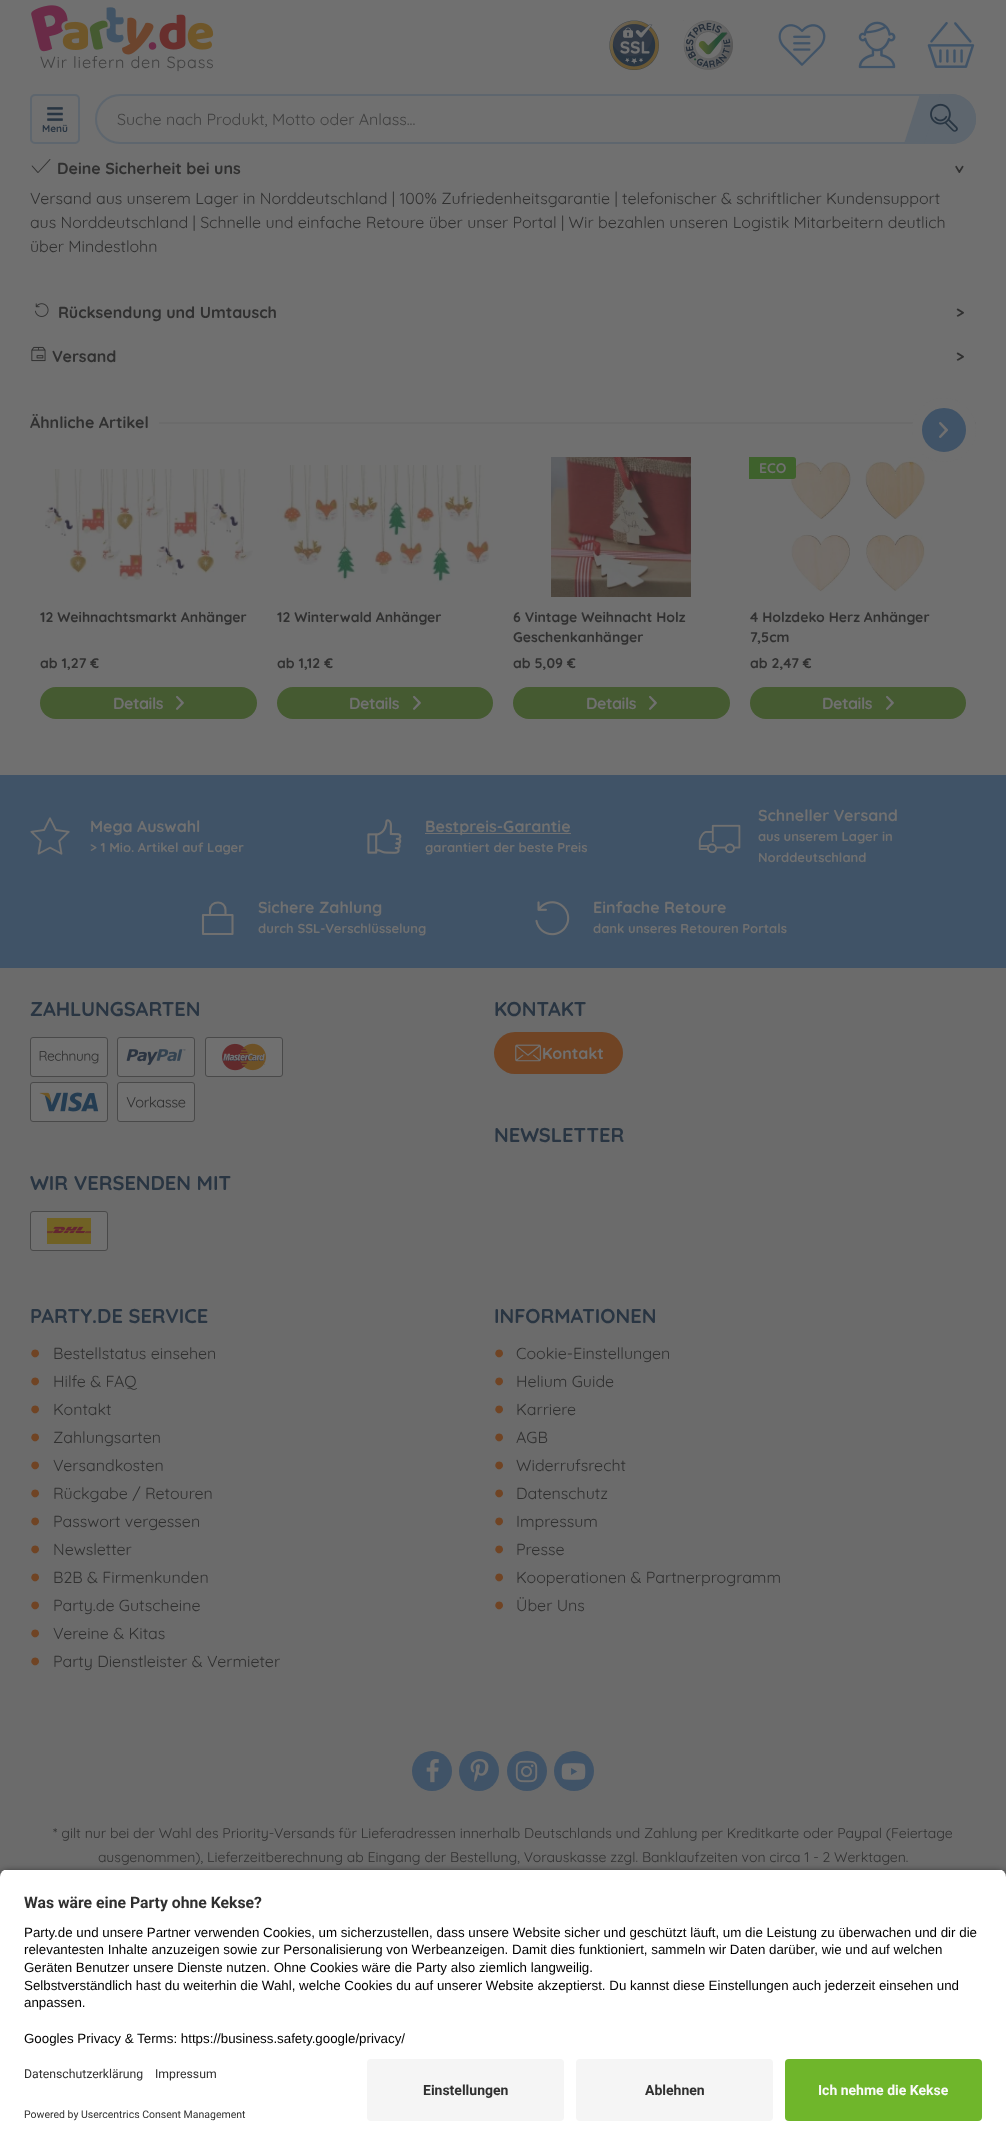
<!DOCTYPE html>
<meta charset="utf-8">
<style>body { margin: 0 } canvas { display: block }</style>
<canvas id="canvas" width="1006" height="2145"></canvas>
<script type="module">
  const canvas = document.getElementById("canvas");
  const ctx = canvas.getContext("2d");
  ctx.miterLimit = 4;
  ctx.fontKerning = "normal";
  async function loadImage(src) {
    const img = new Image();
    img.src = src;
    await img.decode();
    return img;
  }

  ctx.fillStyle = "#707070";
  ctx.fillRect(0, 0, 1006, 2145);
  ctx.drawImage(await loadImage("img1.png"), 31, 5, 183, 50);
  ctx.letterSpacing = "0.8px";
  ctx.font = "16.25px Quicksand";
  ctx.fillStyle = "#404040";
  ctx.fillText("Wir liefern den Spass", 40, 68);
  ctx.drawImage(await loadImage("img2.png"), 609, 20, 50, 50);
  ctx.drawImage(await loadImage("img3.png"), 683, 20, 50, 50);
  ctx.drawImage(await loadImage("img4.png"), 778, 24, 48, 42);
  ctx.drawImage(await loadImage("img5.png"), 858, 21, 38, 48);
  ctx.drawImage(await loadImage("img6.png"), 927, 22, 48, 46);
  ctx.beginPath();
  ctx.roundRect(96, 95, 879, 48, 24);
  ctx.strokeStyle = "#5e666e";
  ctx.lineWidth = 2;
  ctx.stroke();
  ctx.letterSpacing = "0px";
  ctx.font = "16px Quicksand";
  ctx.fillText("Suche nach Produkt, Motto oder Anlass...", 117, 125);
  ctx.fillStyle = "#5e666e";
  ctx.beginPath();
  ctx.roundRect(916, 94, 60, 50, [25, 25, 25, 0]);
  ctx.fill();
  ctx.beginPath();
  ctx.moveTo(920, 94);
  ctx.lineTo(940, 94);
  ctx.lineTo(924, 144);
  ctx.lineTo(904, 144);
  ctx.closePath();
  ctx.fill();
  ctx.drawImage(await loadImage("img7.png"), 930, 103, 28, 29);
  ctx.beginPath();
  ctx.roundRect(31, 95, 48, 48, 4);
  ctx.stroke();
  ctx.drawImage(await loadImage("img8.png"), 47, 107, 16, 14);
  ctx.font = "bold 10px Quicksand";
  ctx.fillStyle = "#293542";
  ctx.fillText("Menü", 42, 132);
  ctx.drawImage(await loadImage("img9.png"), 31, 159, 20, 14);
  ctx.font = "bold 16px Quicksand";
  ctx.fillStyle = "#303030";
  ctx.fillText("Deine Sicherheit bei uns", 57, 174);
  ctx.save();
  ctx.translate(954, 165);
  ctx.rotate(90 * Math.PI / 180);
  ctx.fillText(">", 0, 0);
  ctx.restore();
  ctx.font = "16px Quicksand";
  ctx.fillText("Versand aus unserem Lager in Norddeutschland | 100% Zufriedenheitsgarantie | telefonischer & schriftlicher Kundensupport", 30, 204);
  ctx.fillText("aus Norddeutschland | Schnelle und einfache Retoure über unser Portal | Wir bezahlen unseren Logistik Mitarbeitern deutlich", 30, 228);
  ctx.fillText("über Mindestlohn", 30, 252);
  ctx.drawImage(await loadImage("img10.png"), 35, 303, 14, 14);
  ctx.font = "bold 16px Quicksand";
  ctx.fillText("Rücksendung und Umtausch", 58, 318);
  ctx.fillText(">", 956, 318);
  ctx.drawImage(await loadImage("img11.png"), 31, 346, 15, 16);
  ctx.fillText("Versand", 52, 362);
  ctx.fillText(">", 956, 362);
  ctx.fillStyle = "#6b6b6b";
  ctx.fillRect(159, 422, 817, 2);
  ctx.fillStyle = "#303030";
  ctx.fillText("Ähnliche Artikel", 30, 428);
  ctx.drawImage(await loadImage("img17.png"), 788, 457, 138, 135);
  ctx.fillStyle = "#405367";
  ctx.beginPath();
  ctx.arc(944, 430, 27, 0, Math.PI * 2);
  ctx.fill();
  ctx.strokeStyle = "#707070";
  ctx.lineWidth = 10;
  ctx.stroke();
  ctx.drawImage(await loadImage("img12.png"), 939, 422, 9, 16);
  ctx.drawImage(await loadImage("img13.png"), 45, 469, 208, 112);
  ctx.font = "bold 14px Quicksand";
  ctx.fillStyle = "#303030";
  ctx.fillText("12 Weihnachtsmarkt Anhänger", 40, 622);
  ctx.fillText("ab 1,27 €", 40, 668);
  ctx.fillStyle = "#455a31";
  ctx.beginPath();
  ctx.roundRect(40, 687, 217, 32, 16);
  ctx.fill();
  ctx.letterSpacing = "-0.5px";
  ctx.font = "bold 16px Quicksand";
  ctx.fillStyle = "#707070";
  ctx.fillText("Details", 113, 709);
  ctx.drawImage(await loadImage("img14.png"), 176, 695, 8, 15);
  ctx.drawImage(await loadImage("img15.png"), 277, 465, 216, 120);
  ctx.letterSpacing = "0px";
  ctx.font = "bold 14px Quicksand";
  ctx.fillStyle = "#303030";
  ctx.fillText("12 Winterwald Anhänger", 277, 622);
  ctx.fillText("ab 1,12 €", 277, 668);
  ctx.fillStyle = "#455a31";
  ctx.beginPath();
  ctx.roundRect(277, 687, 216, 32, 16);
  ctx.fill();
  ctx.letterSpacing = "-0.5px";
  ctx.font = "bold 16px Quicksand";
  ctx.fillStyle = "#707070";
  ctx.fillText("Details", 349, 709);
  ctx.drawImage(await loadImage("img14.png"), 413, 695, 8, 15);
  ctx.drawImage(await loadImage("img16.png"), 551, 457, 140, 140);
  ctx.letterSpacing = "0px";
  ctx.font = "bold 14px Quicksand";
  ctx.fillStyle = "#303030";
  ctx.fillText("6 Vintage Weihnacht Holz", 513, 622);
  ctx.fillText("Geschenkanhänger", 513, 642);
  ctx.fillText("ab 5,09 €", 513, 668);
  ctx.fillStyle = "#455a31";
  ctx.beginPath();
  ctx.roundRect(513, 687, 217, 32, 16);
  ctx.fill();
  ctx.letterSpacing = "-0.5px";
  ctx.font = "bold 16px Quicksand";
  ctx.fillStyle = "#707070";
  ctx.fillText("Details", 586, 709);
  ctx.drawImage(await loadImage("img14.png"), 649, 695, 8, 15);
  ctx.fillStyle = "#3e612c";
  ctx.beginPath();
  ctx.roundRect(749, 457, 47, 22, [0, 3, 3, 0]);
  ctx.fill();
  ctx.letterSpacing = "0px";
  ctx.font = "bold 14px Quicksand";
  ctx.fillStyle = "#707070";
  ctx.fillText("ECO", 759, 473);
  ctx.fillStyle = "#303030";
  ctx.fillText("4 Holzdeko Herz Anhänger", 750, 622);
  ctx.fillText("7,5cm", 750, 642);
  ctx.fillText("ab 2,47 €", 750, 668);
  ctx.fillStyle = "#455a31";
  ctx.beginPath();
  ctx.roundRect(750, 687, 216, 32, 16);
  ctx.fill();
  ctx.letterSpacing = "-0.5px";
  ctx.font = "bold 16px Quicksand";
  ctx.fillStyle = "#707070";
  ctx.fillText("Details", 822, 709);
  ctx.drawImage(await loadImage("img14.png"), 886, 695, 8, 15);
  ctx.fillStyle = "#6b6b6b";
  ctx.fillRect(0, 968, 1006, 909);
  ctx.fillStyle = "#405367";
  ctx.fillRect(0, 775, 1006, 193);
  ctx.drawImage(await loadImage("img18.png"), 30, 817, 40, 38);
  ctx.letterSpacing = "0px";
  ctx.fillStyle = "#707070";
  ctx.fillText("Mega Auswahl", 90, 832);
  ctx.font = "bold 13px Quicksand";
  ctx.fillText("> 1 Mio. Artikel auf Lager", 90, 852);
  ctx.drawImage(await loadImage("img19.png"), 367, 819, 35, 35);
  ctx.fillRect(425, 833, 146, 1);
  ctx.font = "bold 16px Quicksand";
  ctx.fillText("Bestpreis-Garantie", 425, 832);
  ctx.font = "bold 13px Quicksand";
  ctx.fillText("garantiert der beste Preis", 425, 852);
  ctx.drawImage(await loadImage("img20.png"), 698, 824, 43, 30);
  ctx.font = "bold 16px Quicksand";
  ctx.fillText("Schneller Versand", 758, 821);
  ctx.font = "bold 13px Quicksand";
  ctx.fillText("aus unserem Lager in", 758, 841);
  ctx.fillText("Norddeutschland", 758, 862);
  ctx.beginPath();
  ctx.moveTo(232.5, 915);
  ctx.lineTo(203, 915);
  ctx.lineTo(203, 934);
  ctx.lineTo(232.5, 934);
  ctx.closePath();
  ctx.moveTo(210, 915);
  ctx.lineTo(210, 910);
  ctx.bezierCurveTo(210, 905.5, 213.5, 902.5, 218, 902.5);
  ctx.bezierCurveTo(222, 902.5, 225.5, 905.5, 225.5, 910);
  ctx.lineTo(225.5, 915);
  ctx.lineWidth = 2.1;
  ctx.lineJoin = "round";
  ctx.stroke();
  ctx.font = "bold 16px Quicksand";
  ctx.fillText("Sichere Zahlung", 258, 913);
  ctx.font = "bold 13px Quicksand";
  ctx.fillText("durch SSL-Verschlüsselung", 258, 933);
  ctx.drawImage(await loadImage("img21.png"), 535, 901, 35, 35);
  ctx.font = "bold 16px Quicksand";
  ctx.fillText("Einfache Retoure", 593, 913);
  ctx.font = "bold 13px Quicksand";
  ctx.fillText("dank unseres Retouren Portals", 593, 933);
  ctx.font = "bold 20px Quicksand";
  ctx.fillStyle = "#293542";
  ctx.fillText("ZAHLUNGSARTEN", 30, 1016);
  ctx.fillStyle = "#707070";
  ctx.beginPath();
  ctx.roundRect(30.5, 1037.5, 77, 39, 2.5);
  ctx.fill();
  ctx.strokeStyle = "#494949";
  ctx.lineWidth = 1;
  ctx.lineJoin = "miter";
  ctx.stroke();
  ctx.drawImage(await loadImage("img22.png"), 39, 1050, 60, 14);
  ctx.beginPath();
  ctx.roundRect(117.5, 1037.5, 77, 39, 2.5);
  ctx.fill();
  ctx.stroke();
  ctx.drawImage(await loadImage("img23.png"), 126, 1049, 60, 16);
  ctx.beginPath();
  ctx.roundRect(205.5, 1037.5, 77, 39, 2.5);
  ctx.fill();
  ctx.stroke();
  ctx.drawImage(await loadImage("img24.png"), 222, 1043, 44, 28);
  ctx.beginPath();
  ctx.roundRect(30.5, 1082.5, 77, 39, 2.5);
  ctx.fill();
  ctx.stroke();
  ctx.drawImage(await loadImage("img25.png"), 39, 1092, 60, 20);
  ctx.beginPath();
  ctx.roundRect(117.5, 1082.5, 77, 39, 2.5);
  ctx.fill();
  ctx.stroke();
  ctx.drawImage(await loadImage("img26.png"), 126, 1096, 60, 12);
  ctx.fillStyle = "#293542";
  ctx.fillText("WIR VERSENDEN MIT", 30, 1190);
  ctx.fillStyle = "#707070";
  ctx.beginPath();
  ctx.roundRect(30.5, 1211.5, 77, 39, 2.5);
  ctx.fill();
  ctx.stroke();
  ctx.drawImage(await loadImage("img27.png"), 47, 1218, 44, 26);
  ctx.fillStyle = "#293542";
  ctx.fillText("KONTAKT", 494, 1016);
  ctx.fillStyle = "#704424";
  ctx.beginPath();
  ctx.roundRect(494, 1032, 129, 42, 21);
  ctx.fill();
  ctx.drawImage(await loadImage("img28.png"), 515, 1044, 26, 18);
  ctx.font = "bold 16px Quicksand";
  ctx.fillStyle = "#707070";
  ctx.fillText("Kontakt", 542, 1059);
  ctx.font = "bold 20px Quicksand";
  ctx.fillStyle = "#293542";
  ctx.fillText("NEWSLETTER", 494, 1142);
  ctx.fillText("PARTY.DE SERVICE", 30, 1323);
  ctx.font = "30px Quicksand";
  ctx.fillStyle = "#704424";
  ctx.fillText("•", 30, 1364);
  ctx.font = "16px Quicksand";
  ctx.fillStyle = "#303030";
  ctx.fillText("Bestellstatus einsehen", 53, 1359);
  ctx.font = "30px Quicksand";
  ctx.fillStyle = "#704424";
  ctx.fillText("•", 30, 1392);
  ctx.font = "16px Quicksand";
  ctx.fillStyle = "#303030";
  ctx.fillText("Hilfe & FAQ", 53, 1387);
  ctx.font = "30px Quicksand";
  ctx.fillStyle = "#704424";
  ctx.fillText("•", 30, 1420);
  ctx.font = "16px Quicksand";
  ctx.fillStyle = "#303030";
  ctx.fillText("Kontakt", 53, 1415);
  ctx.font = "30px Quicksand";
  ctx.fillStyle = "#704424";
  ctx.fillText("•", 30, 1448);
  ctx.font = "16px Quicksand";
  ctx.fillStyle = "#303030";
  ctx.fillText("Zahlungsarten", 53, 1443);
  ctx.font = "30px Quicksand";
  ctx.fillStyle = "#704424";
  ctx.fillText("•", 30, 1476);
  ctx.font = "16px Quicksand";
  ctx.fillStyle = "#303030";
  ctx.fillText("Versandkosten", 53, 1471);
  ctx.font = "30px Quicksand";
  ctx.fillStyle = "#704424";
  ctx.fillText("•", 30, 1504);
  ctx.font = "16px Quicksand";
  ctx.fillStyle = "#303030";
  ctx.fillText("Rückgabe / Retouren", 53, 1499);
  ctx.font = "30px Quicksand";
  ctx.fillStyle = "#704424";
  ctx.fillText("•", 30, 1532);
  ctx.font = "16px Quicksand";
  ctx.fillStyle = "#303030";
  ctx.fillText("Passwort vergessen", 53, 1527);
  ctx.font = "30px Quicksand";
  ctx.fillStyle = "#704424";
  ctx.fillText("•", 30, 1560);
  ctx.font = "16px Quicksand";
  ctx.fillStyle = "#303030";
  ctx.fillText("Newsletter", 53, 1555);
  ctx.font = "30px Quicksand";
  ctx.fillStyle = "#704424";
  ctx.fillText("•", 30, 1588);
  ctx.font = "16px Quicksand";
  ctx.fillStyle = "#303030";
  ctx.fillText("B2B & Firmenkunden", 53, 1583);
  ctx.font = "30px Quicksand";
  ctx.fillStyle = "#704424";
  ctx.fillText("•", 30, 1616);
  ctx.font = "16px Quicksand";
  ctx.fillStyle = "#303030";
  ctx.fillText("Party.de Gutscheine", 53, 1611);
  ctx.font = "30px Quicksand";
  ctx.fillStyle = "#704424";
  ctx.fillText("•", 30, 1644);
  ctx.font = "16px Quicksand";
  ctx.fillStyle = "#303030";
  ctx.fillText("Vereine & Kitas", 53, 1639);
  ctx.font = "30px Quicksand";
  ctx.fillStyle = "#704424";
  ctx.fillText("•", 30, 1672);
  ctx.font = "16px Quicksand";
  ctx.fillStyle = "#303030";
  ctx.fillText("Party Dienstleister & Vermieter", 53, 1667);
  ctx.font = "bold 20px Quicksand";
  ctx.fillStyle = "#293542";
  ctx.fillText("INFORMATIONEN", 494, 1323);
  ctx.font = "30px Quicksand";
  ctx.fillStyle = "#704424";
  ctx.fillText("•", 494, 1364);
  ctx.font = "16px Quicksand";
  ctx.fillStyle = "#303030";
  ctx.fillText("Cookie-Einstellungen", 516, 1359);
  ctx.font = "30px Quicksand";
  ctx.fillStyle = "#704424";
  ctx.fillText("•", 494, 1392);
  ctx.font = "16px Quicksand";
  ctx.fillStyle = "#303030";
  ctx.fillText("Helium Guide", 516, 1387);
  ctx.font = "30px Quicksand";
  ctx.fillStyle = "#704424";
  ctx.fillText("•", 494, 1420);
  ctx.font = "16px Quicksand";
  ctx.fillStyle = "#303030";
  ctx.fillText("Karriere", 516, 1415);
  ctx.font = "30px Quicksand";
  ctx.fillStyle = "#704424";
  ctx.fillText("•", 494, 1448);
  ctx.font = "16px Quicksand";
  ctx.fillStyle = "#303030";
  ctx.fillText("AGB", 516, 1443);
  ctx.font = "30px Quicksand";
  ctx.fillStyle = "#704424";
  ctx.fillText("•", 494, 1476);
  ctx.font = "16px Quicksand";
  ctx.fillStyle = "#303030";
  ctx.fillText("Widerrufsrecht", 516, 1471);
  ctx.font = "30px Quicksand";
  ctx.fillStyle = "#704424";
  ctx.fillText("•", 494, 1504);
  ctx.font = "16px Quicksand";
  ctx.fillStyle = "#303030";
  ctx.fillText("Datenschutz", 516, 1499);
  ctx.font = "30px Quicksand";
  ctx.fillStyle = "#704424";
  ctx.fillText("•", 494, 1532);
  ctx.font = "16px Quicksand";
  ctx.fillStyle = "#303030";
  ctx.fillText("Impressum", 516, 1527);
  ctx.font = "30px Quicksand";
  ctx.fillStyle = "#704424";
  ctx.fillText("•", 494, 1560);
  ctx.font = "16px Quicksand";
  ctx.fillStyle = "#303030";
  ctx.fillText("Presse", 516, 1555);
  ctx.font = "30px Quicksand";
  ctx.fillStyle = "#704424";
  ctx.fillText("•", 494, 1588);
  ctx.font = "16px Quicksand";
  ctx.fillStyle = "#303030";
  ctx.fillText("Kooperationen & Partnerprogramm", 516, 1583);
  ctx.font = "30px Quicksand";
  ctx.fillStyle = "#704424";
  ctx.fillText("•", 494, 1616);
  ctx.font = "16px Quicksand";
  ctx.fillStyle = "#303030";
  ctx.fillText("Über Uns", 516, 1611);
  ctx.fillStyle = "#405367";
  ctx.beginPath();
  ctx.arc(432, 1771, 20, 0, Math.PI * 2);
  ctx.fill();
  ctx.drawImage(await loadImage("img29.png"), 426, 1759, 13, 24);
  ctx.beginPath();
  ctx.arc(479, 1771, 20, 0, Math.PI * 2);
  ctx.fill();
  ctx.drawImage(await loadImage("img30.png"), 470, 1759, 19, 24);
  ctx.beginPath();
  ctx.arc(527, 1771, 20, 0, Math.PI * 2);
  ctx.fill();
  ctx.drawImage(await loadImage("img31.png"), 515, 1760, 23, 23);
  ctx.beginPath();
  ctx.arc(574, 1771, 20, 0, Math.PI * 2);
  ctx.fill();
  ctx.drawImage(await loadImage("img32.png"), 561, 1763, 25, 17);
  ctx.font = "14px Quicksand";
  ctx.fillStyle = "#303030";
  ctx.fillText("* gilt nur bei der Wahl des Priority-Versands für Lieferadressen innerhalb Deutschlands und Zahlung per Kreditkarte oder Paypal (Feiertage", 53, 1838);
  ctx.fillText("ausgenommen), Lieferzeitberechnung ab Eingang der Bestellung, Vorauskasse zzgl. Banklaufzeiten von circa 1 - 2 Werktagen.", 98, 1862);
  ctx.fillStyle = "rgba(0, 0, 0, 0.8)";
  ctx.filter = "blur(3.5px)";
  ctx.beginPath();
  ctx.roundRect(0, 1872, 1006, 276, 8);
  ctx.fill();
  ctx.filter = "none";
  ctx.save();
  ctx.beginPath();
  ctx.roundRect(0, 1869, 1006, 182, [8, 8, 0, 0]);
  ctx.clip();
  ctx.fillStyle = "#ffffff";
  ctx.fillRect(0, 1870, 1006, 181);
  ctx.restore();
  ctx.font = "bold 15.75px Roboto";
  ctx.fillStyle = "#303030";
  ctx.fillText("Was wäre eine Party ohne Kekse?", 24, 1908);
  ctx.font = "13.33px Liberation Sans";
  ctx.fillStyle = "#000000";
  ctx.fillText("Party.de und unsere Partner verwenden Cookies, um sicherzustellen, dass unsere Website sicher und geschützt läuft, um die Leistung zu überwachen und dir die", 24, 1937);
  ctx.fillText("relevantesten Inhalte anzuzeigen sowie zur Personalisierung von Werbeanzeigen. Damit dies funktioniert, sammeln wir Daten darüber, wie und auf welchen", 24, 1954);
  ctx.fillText("Geräten Benutzer unsere Dienste nutzen. Ohne Cookies wäre die Party also ziemlich langweilig.", 24, 1972);
  ctx.fillText("Selbstverständlich hast du weiterhin die Wahl, welche Cookies du auf unserer Website akzeptierst. Du kannst diese Einstellungen auch jederzeit einsehen und", 24, 1990);
  ctx.fillText("anpassen.", 24, 2007);
  ctx.fillText("Googles Privacy & Terms: https://business.safety.google/privacy/", 24, 2043);
  ctx.fillStyle = "#ffffff";
  ctx.fillRect(0, 2051, 1006, 94);
  ctx.font = "12.25px Roboto";
  ctx.fillStyle = "#303030";
  ctx.fillText("Datenschutzerklärung", 24, 2078);
  ctx.fillText("Impressum", 155, 2078);
  ctx.font = "10.5px Roboto";
  ctx.fillText("Powered by Usercentrics Consent Management", 24, 2118);
  ctx.fillStyle = "#f5f5f5";
  ctx.beginPath();
  ctx.roundRect(367, 2059, 197, 62, 4);
  ctx.fill();
  ctx.font = "bold 14px Roboto";
  ctx.fillStyle = "#303030";
  ctx.fillText("Einstellungen", 423, 2095);
  ctx.fillStyle = "#f5f5f5";
  ctx.beginPath();
  ctx.roundRect(576, 2059, 197, 62, 4);
  ctx.fill();
  ctx.fillStyle = "#303030";
  ctx.fillText("Ablehnen", 645, 2095);
  ctx.fillStyle = "#6fb62b";
  ctx.beginPath();
  ctx.roundRect(785, 2059, 197, 62, 4);
  ctx.fill();
  ctx.fillStyle = "#fafafa";
  ctx.fillText("Ich nehme die Kekse", 818, 2095);
</script>
